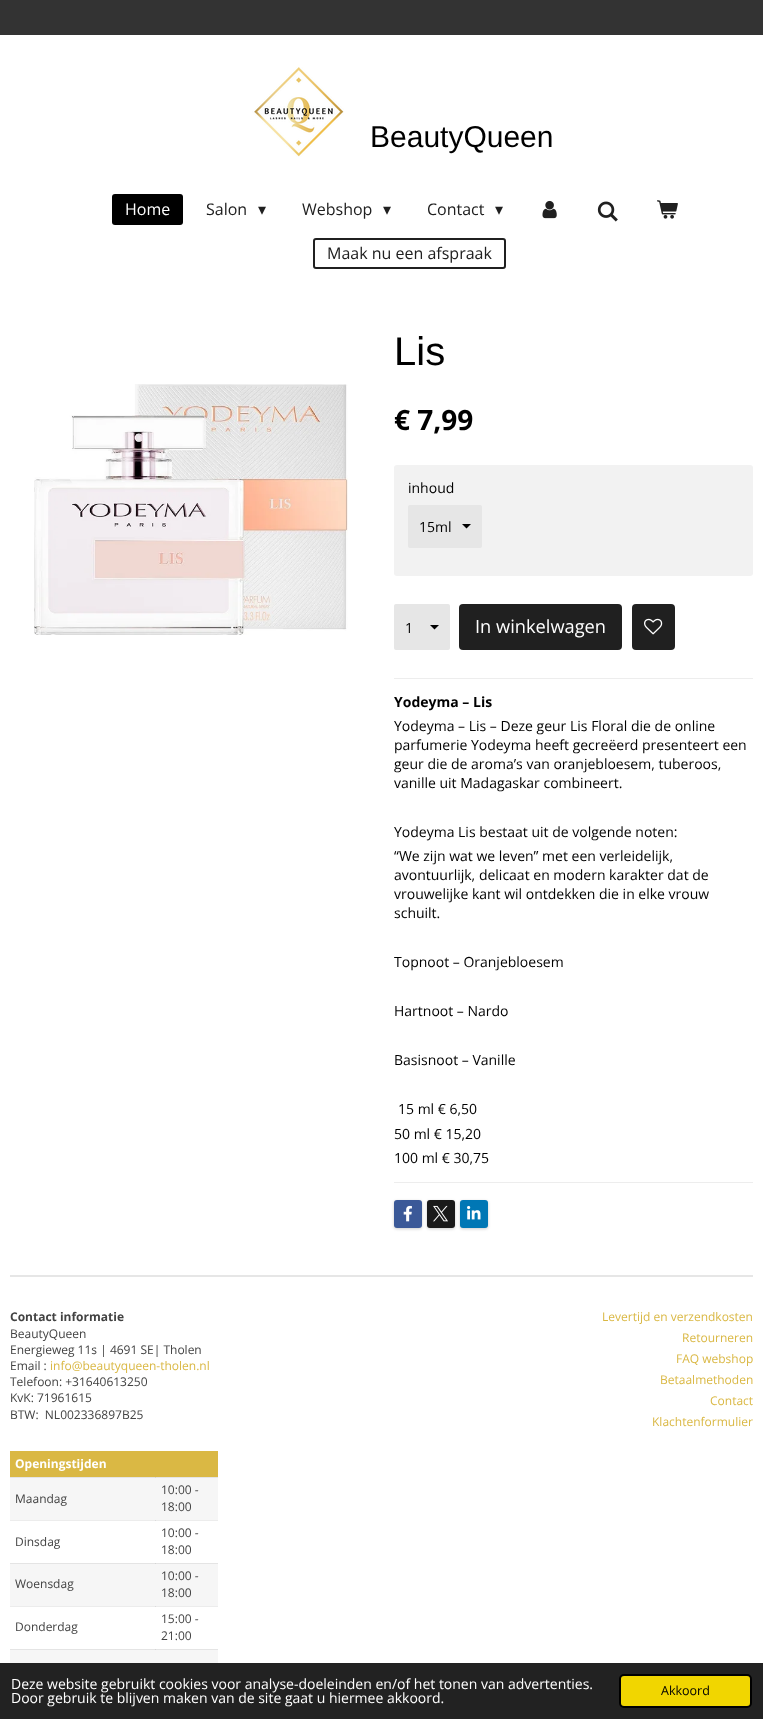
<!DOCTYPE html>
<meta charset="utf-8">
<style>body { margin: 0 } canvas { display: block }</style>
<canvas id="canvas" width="763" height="1719"></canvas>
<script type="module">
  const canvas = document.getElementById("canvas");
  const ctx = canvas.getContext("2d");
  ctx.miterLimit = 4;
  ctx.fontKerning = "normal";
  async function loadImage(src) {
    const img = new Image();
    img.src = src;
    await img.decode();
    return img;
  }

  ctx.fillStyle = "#ffffff";
  ctx.fillRect(0, 0, 763, 1719);
  ctx.fillStyle = "#ececec";
  ctx.fillRect(10, 1520, 208, 1);
  ctx.fillRect(10, 1606, 208, 1);
  ctx.fillStyle = "#333333";
  ctx.fillRect(0, 0, 763, 35);
  ctx.drawImage(await loadImage("img1.png"), 252, 67, 92, 90);
  ctx.font = "30px Liberation Sans";
  ctx.fillStyle = "#000000";
  ctx.fillText("BeautyQueen", 370, 147);
  ctx.beginPath();
  ctx.roundRect(112, 194, 71, 31, 3);
  ctx.fill();
  ctx.font = "16px Open Sans";
  ctx.fillStyle = "#ffffff";
  ctx.fillText("Home", 125, 215);
  ctx.fillStyle = "#202020";
  ctx.fillText("Salon", 206, 215);
  ctx.font = "16px DejaVu Sans";
  ctx.fillText("▾", 258, 215);
  ctx.font = "16px Open Sans";
  ctx.fillText("Webshop", 302, 215);
  ctx.font = "16px DejaVu Sans";
  ctx.fillText("▾", 383, 215);
  ctx.font = "16px Open Sans";
  ctx.fillText("Contact", 427, 215);
  ctx.font = "16px DejaVu Sans";
  ctx.fillText("▾", 495, 215);
  ctx.drawImage(await loadImage("img2.png"), 542, 200, 15, 19);
  ctx.drawImage(await loadImage("img3.png"), 597, 201, 21, 21);
  ctx.drawImage(await loadImage("img4.png"), 657, 200, 21, 19);
  ctx.beginPath();
  ctx.roundRect(314, 239, 191, 29, 2);
  ctx.strokeStyle = "#202020";
  ctx.lineWidth = 2;
  ctx.stroke();
  ctx.font = "16px Open Sans";
  ctx.fillText("Maak nu een afspraak", 327, 259);
  ctx.font = "40px Liberation Sans";
  ctx.fillStyle = "#000000";
  ctx.fillText("Lis", 394, 365);
  ctx.drawImage(await loadImage("img5.png"), 34, 384, 314, 251);
  ctx.font = "bold 28px Open Sans";
  ctx.fillText("€ 7,99", 394, 430);
  ctx.fillStyle = "#f2f2f2";
  ctx.beginPath();
  ctx.roundRect(394, 465, 359, 111, 3);
  ctx.fill();
  ctx.font = "14px Open Sans";
  ctx.fillStyle = "#000000";
  ctx.fillText("inhoud", 408, 493);
  ctx.fillStyle = "#e6e6e6";
  ctx.beginPath();
  ctx.roundRect(408, 505, 74, 43, 2);
  ctx.fill();
  ctx.fillStyle = "#000000";
  ctx.beginPath();
  ctx.moveTo(466.5, 528.5);
  ctx.lineTo(462, 524);
  ctx.lineTo(471, 524);
  ctx.closePath();
  ctx.fill();
  ctx.fillText("15ml", 419, 532);
  ctx.fillStyle = "#e6e6e6";
  ctx.beginPath();
  ctx.roundRect(394, 604, 56, 46, 2);
  ctx.fill();
  ctx.fillStyle = "#000000";
  ctx.beginPath();
  ctx.moveTo(434.5, 629.5);
  ctx.lineTo(430, 625);
  ctx.lineTo(439, 625);
  ctx.closePath();
  ctx.fill();
  ctx.fillText("1", 405, 633);
  ctx.fillStyle = "#202020";
  ctx.beginPath();
  ctx.roundRect(459, 604, 163, 46, 4);
  ctx.fill();
  ctx.font = "18.25px Open Sans";
  ctx.fillStyle = "#ffffff";
  ctx.fillText("In winkelwagen", 475, 633);
  ctx.fillStyle = "#202020";
  ctx.beginPath();
  ctx.roundRect(632, 604, 43, 46, 4);
  ctx.fill();
  ctx.drawImage(await loadImage("img6.png"), 644, 618, 19, 17);
  ctx.fillStyle = "#ededed";
  ctx.fillRect(394, 678, 359, 1);
  ctx.font = "bold 14px Open Sans";
  ctx.fillStyle = "#000000";
  ctx.fillText("Yodeyma – Lis", 394, 707);
  ctx.font = "14px Open Sans";
  ctx.fillText("Yodeyma – Lis – Deze geur Lis Floral die de online", 394, 731);
  ctx.fillText("parfumerie Yodeyma heeft gecreëerd presenteert een", 394, 750);
  ctx.fillText("geur die de aroma’s van oranjebloesem, tuberoos,", 394, 769);
  ctx.fillText("vanille uit Madagaskar combineert.", 394, 788);
  ctx.fillText("Yodeyma Lis bestaat uit de volgende noten:", 394, 837);
  ctx.fillText("“We zijn wat we leven” met een verleidelijk,", 394, 861);
  ctx.fillText("avontuurlijk, delicaat en modern karakter dat de", 394, 880);
  ctx.fillText("vrouwelijke kant wil ontdekken die in elke vrouw", 394, 899);
  ctx.fillText("schuilt.", 394, 918);
  ctx.fillText("Topnoot – Oranjebloesem", 394, 967);
  ctx.fillText("Hartnoot – Nardo", 394, 1016);
  ctx.fillText("Basisnoot – Vanille", 394, 1065);
  ctx.fillText("15 ml € 6,50", 398, 1114);
  ctx.fillText("50 ml € 15,20", 394, 1139);
  ctx.fillText("100 ml € 30,75", 394, 1163);
  ctx.fillStyle = "#ededed";
  ctx.fillRect(394, 1182, 359, 1);
  ctx.fillStyle = "rgba(0, 0, 0, 0.2)";
  ctx.filter = "blur(1.5px)";
  ctx.beginPath();
  ctx.roundRect(394, 1201, 28, 28, 3);
  ctx.fill();
  ctx.filter = "none";
  ctx.fillStyle = "#3b5998";
  ctx.beginPath();
  ctx.roundRect(394, 1200, 28, 28, 3);
  ctx.fill();
  ctx.drawImage(await loadImage("img7.png"), 403, 1205, 9, 17);
  ctx.fillStyle = "rgba(0, 0, 0, 0.2)";
  ctx.filter = "blur(1.5px)";
  ctx.beginPath();
  ctx.roundRect(427, 1201, 28, 28, 3);
  ctx.fill();
  ctx.filter = "none";
  ctx.fillStyle = "#1a1a1a";
  ctx.beginPath();
  ctx.roundRect(427, 1200, 28, 28, 3);
  ctx.fill();
  ctx.drawImage(await loadImage("img8.png"), 433, 1205, 15, 17);
  ctx.fillStyle = "rgba(0, 0, 0, 0.2)";
  ctx.filter = "blur(1.5px)";
  ctx.beginPath();
  ctx.roundRect(460, 1201, 28, 28, 3);
  ctx.fill();
  ctx.filter = "none";
  ctx.fillStyle = "#0077b5";
  ctx.beginPath();
  ctx.roundRect(460, 1200, 28, 28, 3);
  ctx.fill();
  ctx.drawImage(await loadImage("img9.png"), 467, 1205, 14, 15);
  ctx.fillStyle = "#e6e6e6";
  ctx.fillRect(10, 1275, 743, 2);
  ctx.font = "bold 12px Open Sans";
  ctx.fillStyle = "#424242";
  ctx.fillText("Contact informatie", 10, 1321);
  ctx.font = "12px Open Sans";
  ctx.fillText("BeautyQueen", 10, 1338);
  ctx.fillText("Energieweg 11s | 4691 SE| Tholen", 10, 1354);
  ctx.fillText("Email :", 10, 1370);
  ctx.fillStyle = "#dab844";
  ctx.fillText("info@beautyqueen-tholen.nl", 50, 1370);
  ctx.fillStyle = "#424242";
  ctx.fillText("Telefoon: +31640613250", 10, 1386);
  ctx.fillText("KvK: 71961615", 10, 1402);
  ctx.fillText("BTW:  NL002336897B25", 10, 1419);
  ctx.fillStyle = "#dab844";
  ctx.fillRect(10, 1451, 208, 26);
  ctx.font = "bold 12px Open Sans";
  ctx.fillStyle = "#ffffff";
  ctx.fillText("Openingstijden", 15, 1468);
  ctx.fillStyle = "#f6f6f6";
  ctx.fillRect(10, 1478, 208, 42);
  ctx.fillStyle = "#e4e4e4";
  ctx.fillRect(10, 1477, 208, 1);
  ctx.font = "12px Open Sans";
  ctx.fillStyle = "#424242";
  ctx.fillText("Maandag", 15, 1503);
  ctx.fillStyle = "#d4d4d4";
  ctx.fillRect(155, 1477, 1, 1);
  ctx.fillStyle = "#424242";
  ctx.fillText("10:00 -", 161, 1494);
  ctx.fillText("18:00", 161, 1511);
  ctx.fillText("Dinsdag", 15, 1546);
  ctx.fillStyle = "#dbdbdb";
  ctx.fillRect(155, 1520, 1, 1);
  ctx.fillStyle = "#424242";
  ctx.fillText("10:00 -", 161, 1537);
  ctx.fillText("18:00", 161, 1554);
  ctx.fillStyle = "#f6f6f6";
  ctx.fillRect(10, 1564, 208, 42);
  ctx.fillStyle = "#e4e4e4";
  ctx.fillRect(10, 1563, 208, 1);
  ctx.fillStyle = "#424242";
  ctx.fillText("Woensdag", 15, 1588);
  ctx.fillStyle = "#d4d4d4";
  ctx.fillRect(155, 1563, 1, 1);
  ctx.fillStyle = "#424242";
  ctx.fillText("10:00 -", 161, 1580);
  ctx.fillText("18:00", 161, 1597);
  ctx.fillText("Donderdag", 15, 1631);
  ctx.fillStyle = "#dbdbdb";
  ctx.fillRect(155, 1606, 1, 1);
  ctx.fillStyle = "#424242";
  ctx.fillText("15:00 -", 161, 1623);
  ctx.fillText("21:00", 161, 1640);
  ctx.fillStyle = "#f6f6f6";
  ctx.fillRect(10, 1650, 208, 13);
  ctx.fillStyle = "#e4e4e4";
  ctx.fillRect(10, 1649, 208, 1);
  ctx.fillStyle = "#d4d4d4";
  ctx.fillRect(155, 1649, 1, 1);
  ctx.fillStyle = "#dab844";
  ctx.fillText("Levertijd en verzendkosten", 602, 1321);
  ctx.fillText("Retourneren", 682, 1342);
  ctx.fillText("FAQ webshop", 676, 1363);
  ctx.fillText("Betaalmethoden", 660, 1384);
  ctx.fillText("Contact", 710, 1405);
  ctx.fillText("Klachtenformulier", 652, 1426);
  ctx.fillStyle = "#222222";
  ctx.fillRect(0, 1663, 763, 56);
  ctx.font = "14px Open Sans";
  ctx.fillStyle = "#ffffff";
  ctx.fillText("Deze website gebruikt cookies voor analyse-doeleinden en/of het tonen van advertenties.", 11, 1689);
  ctx.fillText("Door gebruik te blijven maken van de site gaat u hiermee akkoord.", 11, 1703);
  ctx.fillStyle = "#f1d600";
  ctx.beginPath();
  ctx.roundRect(620, 1675, 131, 32, 4);
  ctx.fill();
  ctx.strokeStyle = "#000000";
  ctx.stroke();
  ctx.font = "12.5px Open Sans";
  ctx.fillStyle = "#000000";
  ctx.fillText("Akkoord", 661, 1695);
</script>
